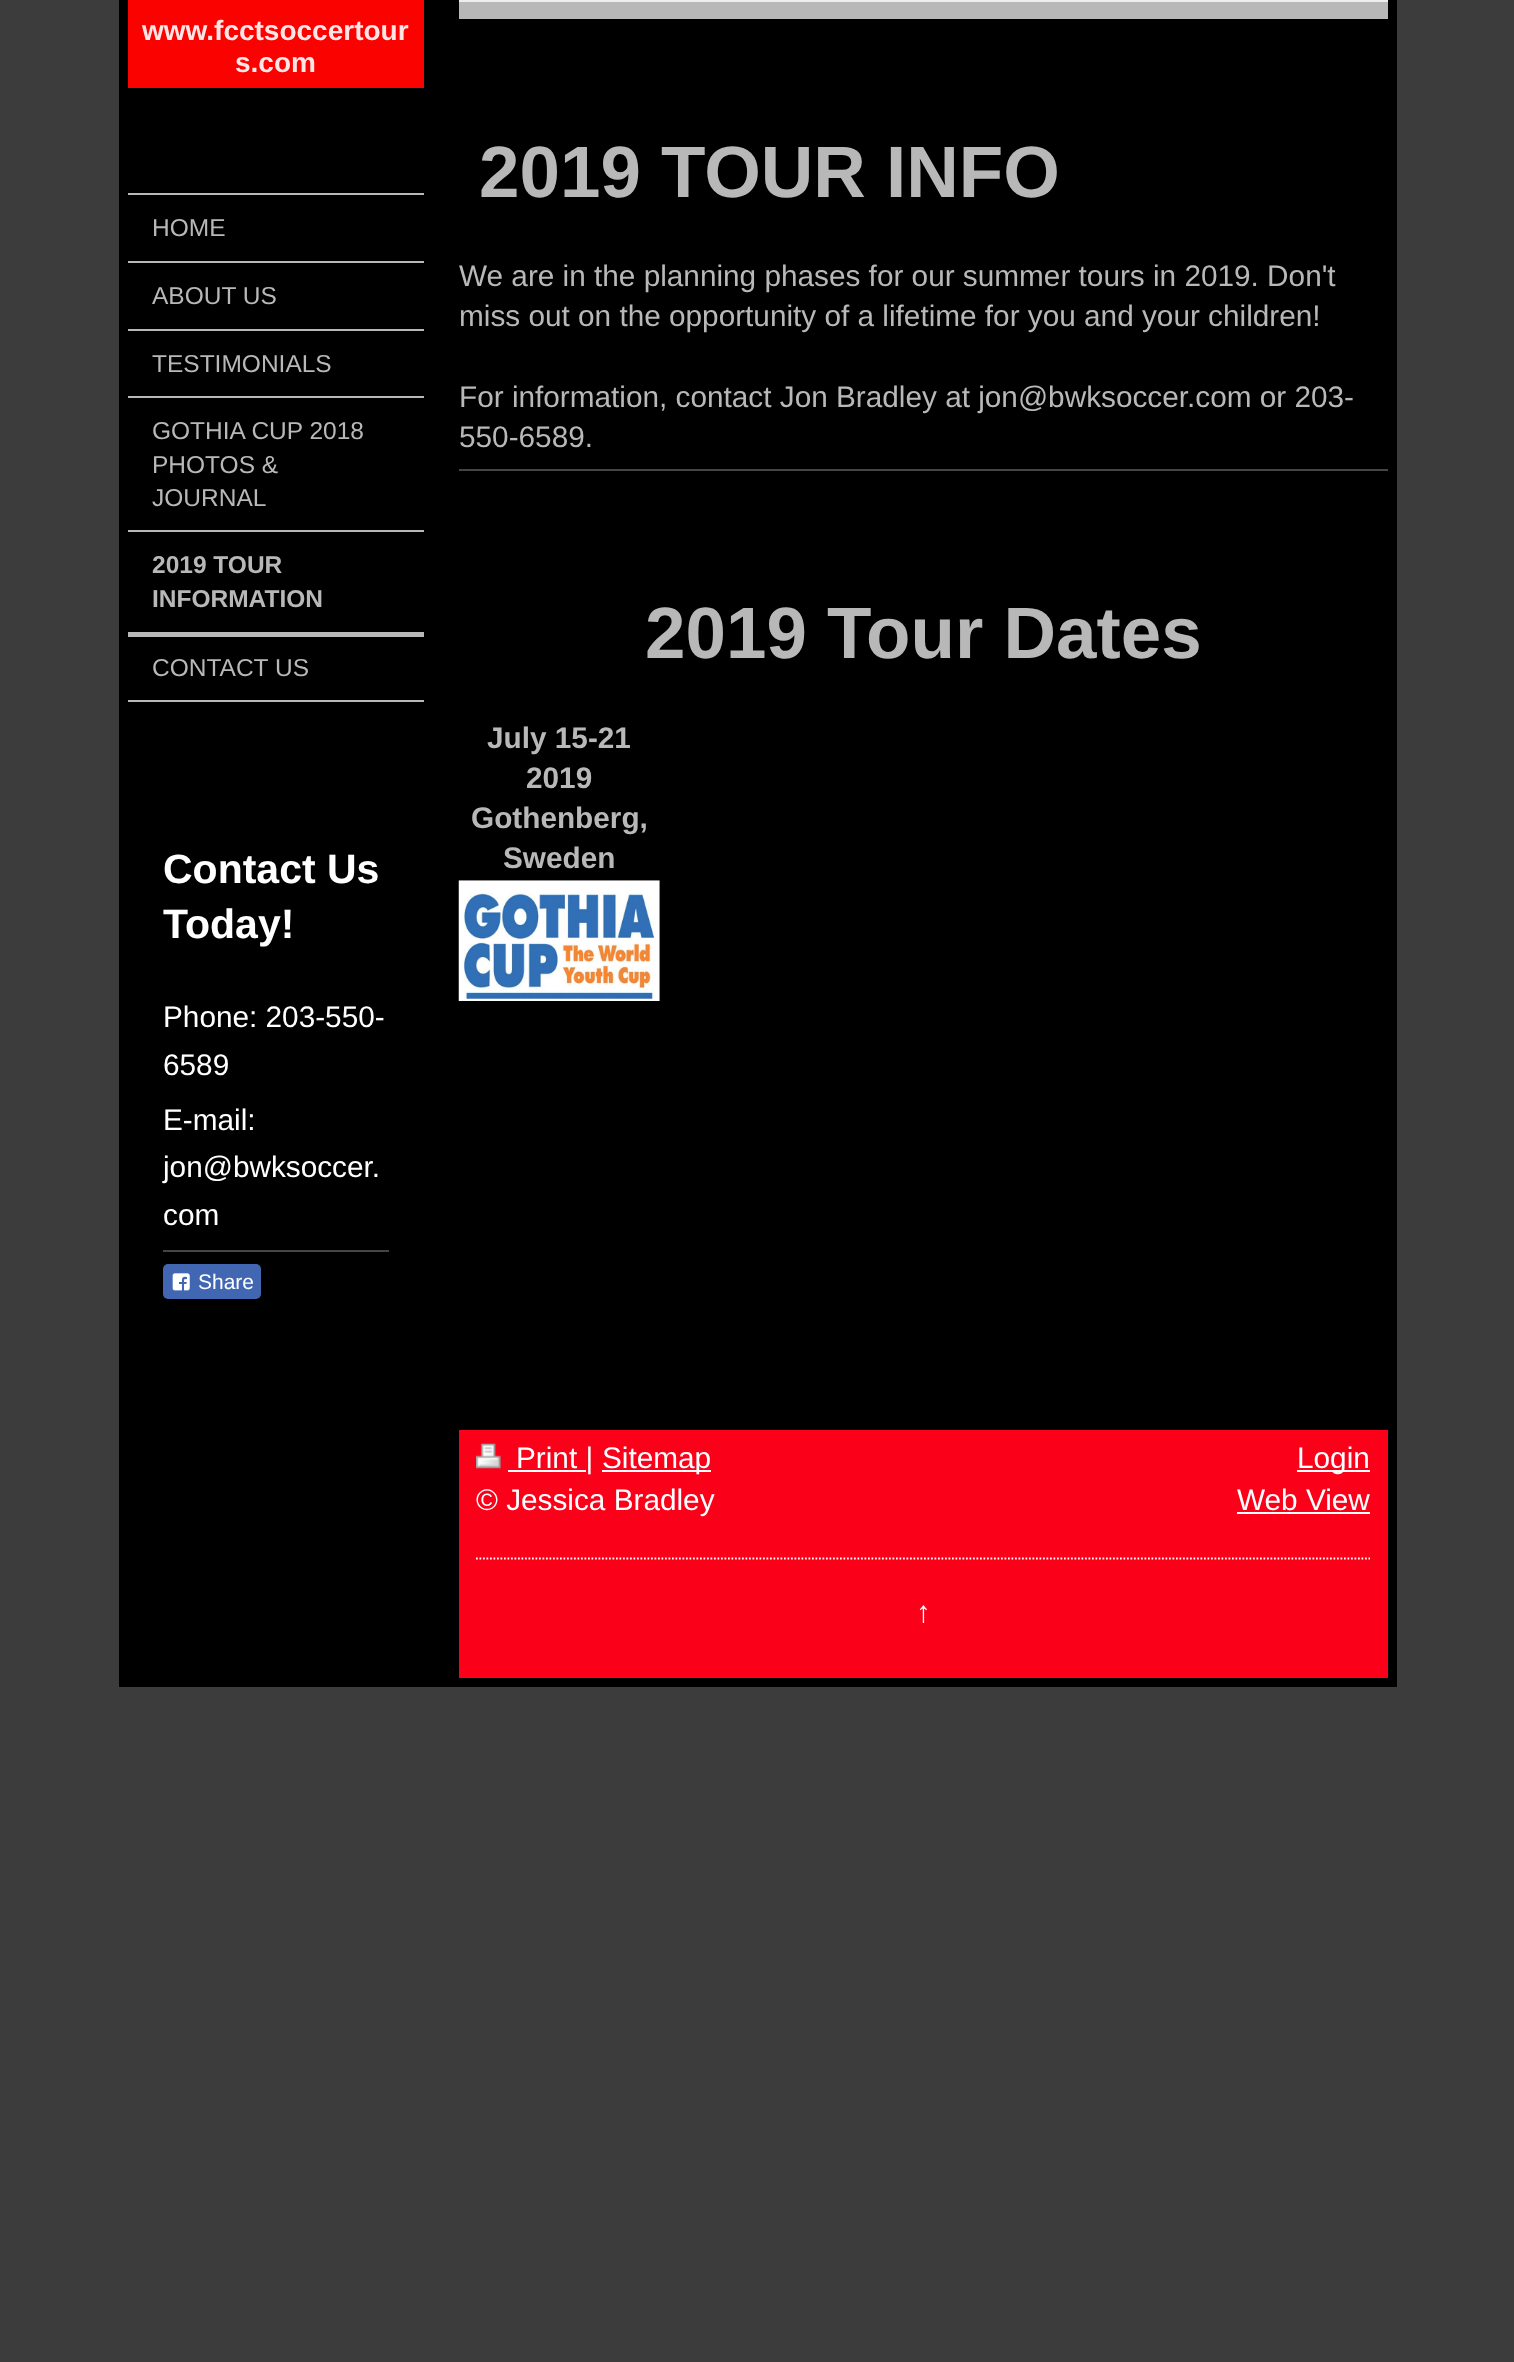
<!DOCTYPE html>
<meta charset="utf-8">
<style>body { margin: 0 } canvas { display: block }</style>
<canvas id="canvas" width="1514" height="2362"></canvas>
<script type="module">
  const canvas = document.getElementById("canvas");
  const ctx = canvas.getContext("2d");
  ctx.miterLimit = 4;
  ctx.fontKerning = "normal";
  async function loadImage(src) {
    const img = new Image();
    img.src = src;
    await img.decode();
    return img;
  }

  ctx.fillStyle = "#3c3c3c";
  ctx.fillRect(0, 0, 1514, 2362);
  ctx.fillStyle = "#000000";
  ctx.fillRect(119, 0, 1278, 1687);
  ctx.fillStyle = "#fa0200";
  ctx.fillRect(128, 0, 296, 88);
  ctx.font = "bold 28px Liberation Sans";
  ctx.fillStyle = "#ffe6e6";
  ctx.fillText("www.fcctsoccertour", 142, 40);
  ctx.fillText("s.com", 235, 72);
  ctx.fillStyle = "#b8b8b8";
  ctx.fillRect(128, 193, 296, 2);
  ctx.fillRect(128, 261, 296, 2);
  ctx.font = "24.5px Liberation Sans";
  ctx.fillText("HOME", 152, 236);
  ctx.fillRect(128, 329, 296, 2);
  ctx.fillText("ABOUT US", 152, 304);
  ctx.fillRect(128, 396, 296, 2);
  ctx.fillText("TESTIMONIALS", 152, 372);
  ctx.fillRect(128, 530, 296, 2);
  ctx.fillText("GOTHIA CUP 2018", 152, 439);
  ctx.fillText("PHOTOS &", 152, 473);
  ctx.fillText("JOURNAL", 152, 506);
  ctx.fillRect(128, 632, 296, 5);
  ctx.font = "bold 24.5px Liberation Sans";
  ctx.fillText("2019 TOUR", 152, 573);
  ctx.fillText("INFORMATION", 152, 607);
  ctx.fillRect(128, 700, 296, 2);
  ctx.font = "24.5px Liberation Sans";
  ctx.fillText("CONTACT US", 152, 676);
  ctx.font = "bold 41px Liberation Sans";
  ctx.fillStyle = "#ffffff";
  ctx.fillText("Contact Us", 163, 883);
  ctx.fillText("Today!", 163, 938);
  ctx.font = "29.75px Liberation Sans";
  ctx.fillText("Phone: 203-550-", 163, 1027);
  ctx.fillText("6589", 163, 1075);
  ctx.fillText("E-mail:", 163, 1130);
  ctx.fillText("jon@bwksoccer.", 163, 1177);
  ctx.fillText("com", 163, 1225);
  ctx.fillStyle = "#454545";
  ctx.fillRect(163, 1250, 226, 2);
  ctx.fillStyle = "#4267b2";
  ctx.beginPath();
  ctx.roundRect(163, 1264, 98, 35, 5);
  ctx.fill();
  ctx.drawImage(await loadImage("img1.png"), 172, 1273, 18, 18);
  ctx.font = "21px Liberation Sans";
  ctx.fillStyle = "#ffffff";
  ctx.fillText("Share", 198, 1289);
  ctx.fillStyle = "#b8b8b8";
  ctx.fillRect(459, 2, 929, 17);
  ctx.fillStyle = "#eeeeee";
  ctx.fillRect(459, 0, 929, 2);
  ctx.font = "bold 72.75px Liberation Sans";
  ctx.fillStyle = "#b8b8b8";
  ctx.fillText("2019 TOUR INFO", 479, 197);
  ctx.font = "29.75px Liberation Sans";
  ctx.fillText("We are in the planning phases for our summer tours in 2019. Don't", 459, 286);
  ctx.fillText("miss out on the opportunity of a lifetime for you and your children!", 459, 326);
  ctx.fillText("For information, contact Jon Bradley at jon@bwksoccer.com or 203-", 459, 407);
  ctx.fillText("550-6589.", 459, 447);
  ctx.fillStyle = "#454545";
  ctx.fillRect(459, 469, 929, 2);
  ctx.font = "bold 72.75px Liberation Sans";
  ctx.fillStyle = "#b8b8b8";
  ctx.fillText("2019 Tour Dates", 645, 658);
  ctx.font = "bold 29.75px Liberation Sans";
  ctx.fillText("July 15-21", 487, 748);
  ctx.fillText("2019", 526, 788);
  ctx.fillText("Gothenberg,", 471, 828);
  ctx.fillText("Sweden", 503, 868);
  ctx.drawImage(await loadImage("img2.png"), 458, 880, 202, 121);
  ctx.fillStyle = "#fa0019";
  ctx.fillRect(459, 1430, 929, 248);
  ctx.drawImage(await loadImage("img3.png"), 476, 1443, 25, 26);
  ctx.fillStyle = "#ffffff";
  ctx.fillRect(508, 1470, 78, 2);
  ctx.font = "29.75px Liberation Sans";
  ctx.fillText("Print |", 516, 1468);
  ctx.fillRect(602, 1470, 109, 2);
  ctx.fillText("Sitemap", 602, 1468);
  ctx.fillText("© Jessica Bradley", 476, 1510);
  ctx.fillRect(1297, 1470, 73, 2);
  ctx.fillText("Login", 1297, 1468);
  ctx.fillText("Web View", 1237, 1510);
  ctx.fillRect(1237, 1512, 133, 2);
  ctx.beginPath();
  ctx.moveTo(476, 1558.5);
  ctx.lineTo(1370, 1558.5);
  ctx.strokeStyle = "#ffffff";
  ctx.lineWidth = 1.8;
  ctx.setLineDash([1.75, 1.75]);
  ctx.stroke();
  ctx.fillText("↑", 916, 1622);
</script>
